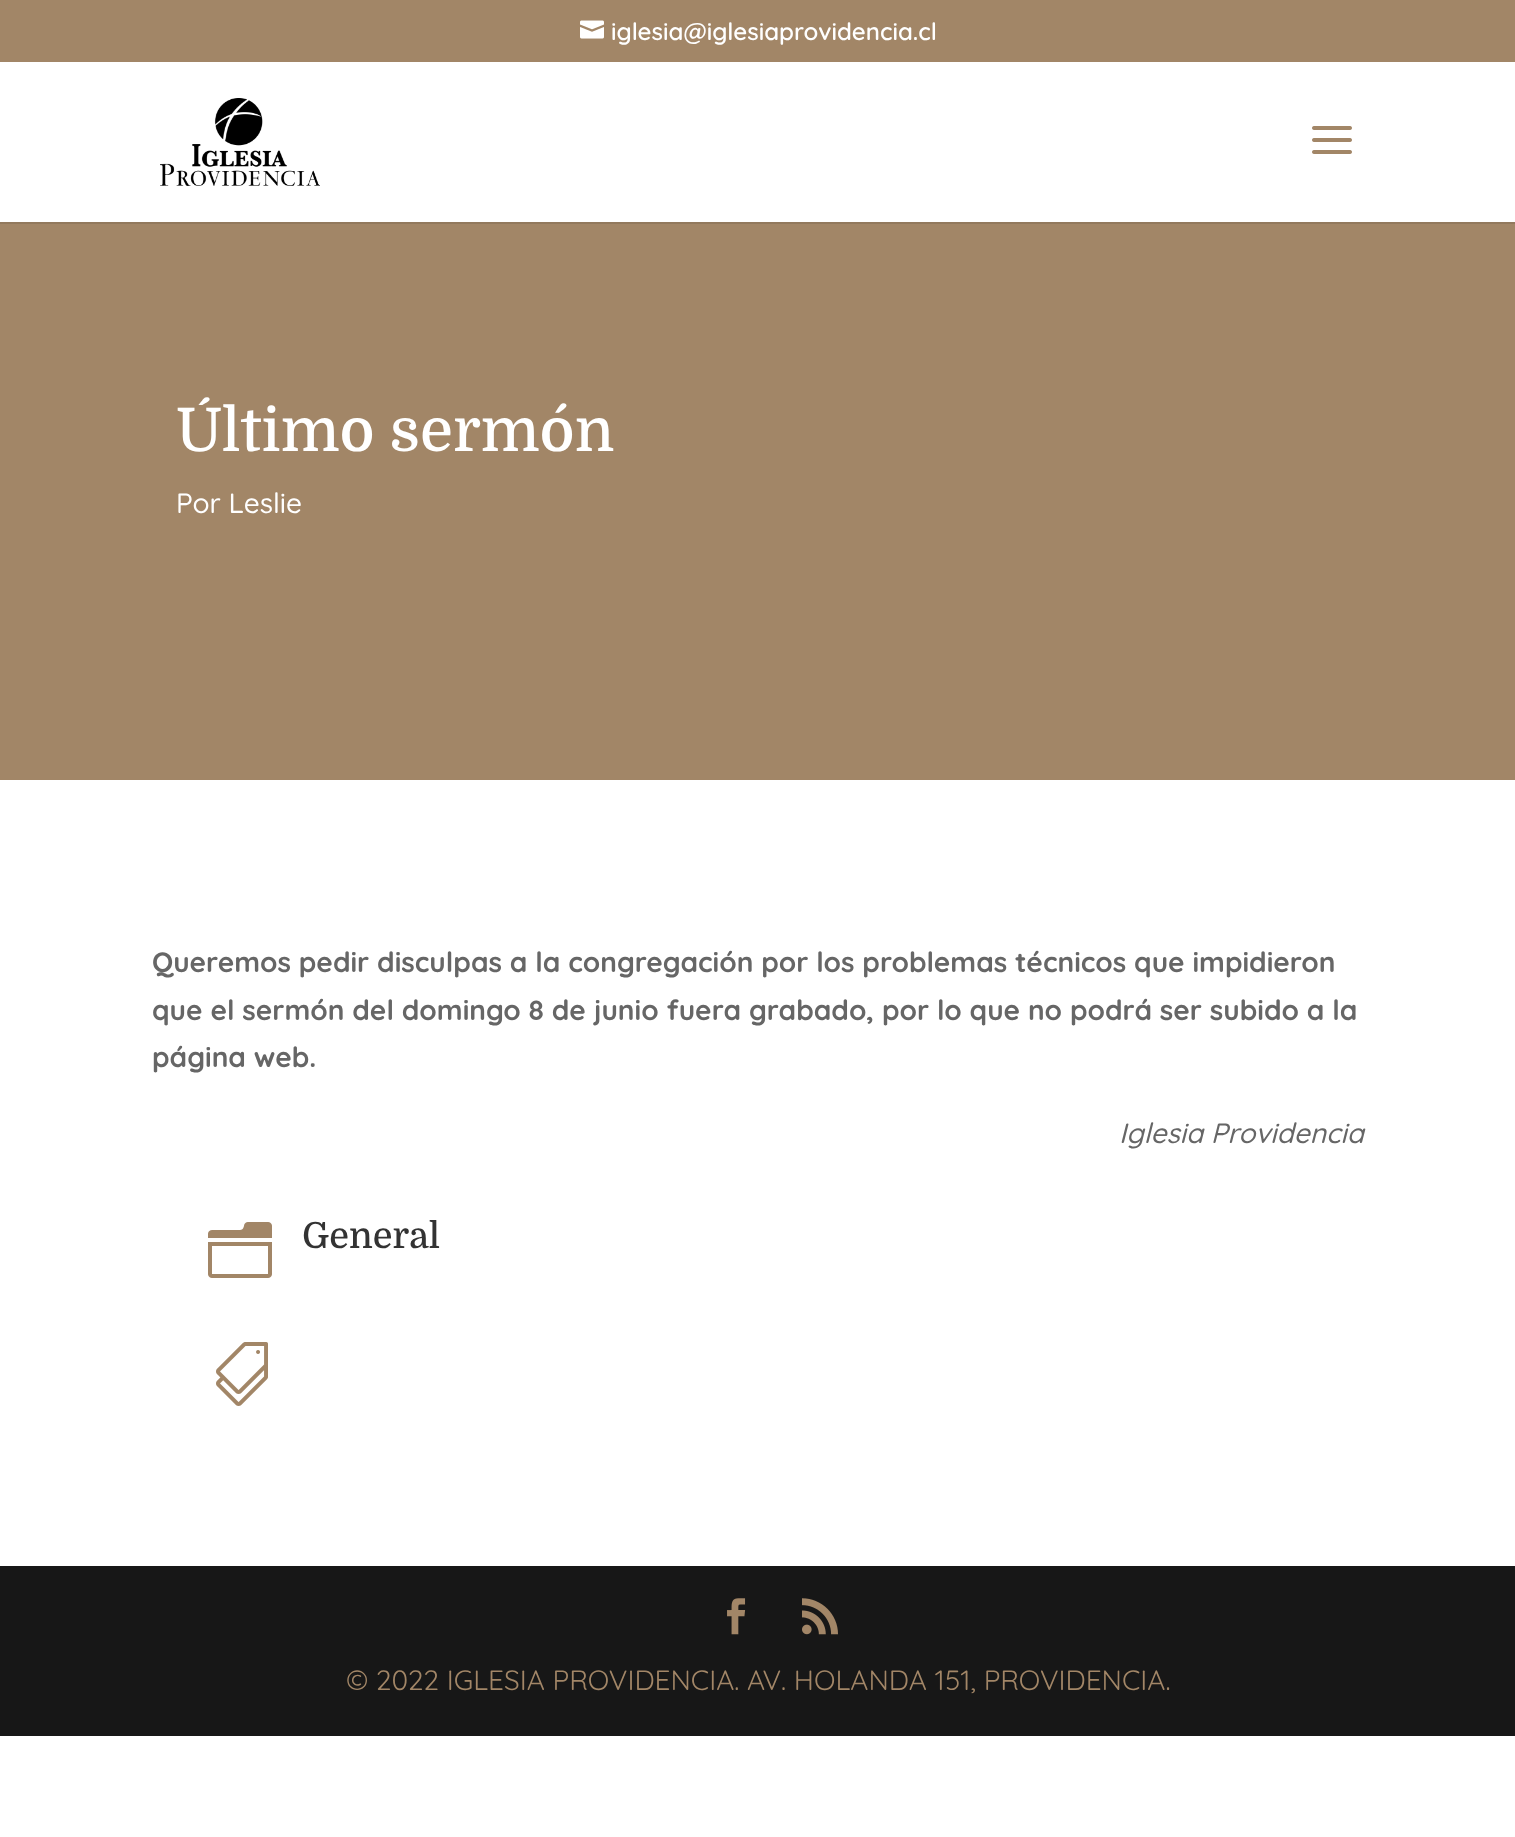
<!DOCTYPE html>
<meta charset="utf-8">
<style>body { margin: 0 } canvas { display: block }</style>
<canvas id="canvas" width="1515" height="1837"></canvas>
<script type="module">
  const canvas = document.getElementById("canvas");
  const ctx = canvas.getContext("2d");
  ctx.miterLimit = 4;
  ctx.fontKerning = "normal";
  async function loadImage(src) {
    const img = new Image();
    img.src = src;
    await img.decode();
    return img;
  }

  ctx.fillStyle = "#ffffff";
  ctx.fillRect(0, 0, 1515, 1837);
  ctx.fillStyle = "#a28667";
  ctx.fillRect(0, 0, 1515, 62);
  ctx.drawImage(await loadImage("img1.png"), 580, 20, 24, 19);
  ctx.font = "600 24px Quicksand";
  ctx.fillStyle = "#ffffff";
  ctx.fillText("iglesia@iglesiaprovidencia.cl", 611, 40);
  ctx.fillStyle = "#92795d";
  ctx.fillRect(0, 222, 1515, 2);
  ctx.drawImage(await loadImage("img2.png"), 160, 98, 160, 88);
  ctx.drawImage(await loadImage("img3.png"), 1312, 126, 40, 28);
  ctx.fillStyle = "#a28667";
  ctx.fillRect(0, 224, 1515, 556);
  ctx.font = "500 60px Domine";
  ctx.fillStyle = "#ffffff";
  ctx.fillText("Último sermón", 176, 451);
  ctx.font = "300 28px 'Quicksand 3'";
  ctx.fillText("Por Leslie", 176, 513);
  ctx.font = "300 28px 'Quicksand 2'";
  ctx.fillStyle = "#666666";
  ctx.fillText("Queremos pedir disculpas a la congregación por los problemas técnicos que impidieron", 152, 972);
  ctx.fillText("que el sermón del domingo 8 de junio fuera grabado, por lo que no podrá ser subido a la", 152, 1020);
  ctx.fillText("página web.", 152, 1067);
  ctx.font = "italic 300 28px Quicksand";
  ctx.fillText("Iglesia Providencia", 1119, 1143);
  ctx.drawImage(await loadImage("img4.png"), 208, 1222, 64, 56);
  ctx.font = "500 36px Domine";
  ctx.fillStyle = "#333333";
  ctx.fillText("General", 302, 1248);
  ctx.drawImage(await loadImage("img5.png"), 216, 1342, 52, 64);
  ctx.fillStyle = "#171717";
  ctx.fillRect(0, 1566, 1515, 170);
  ctx.drawImage(await loadImage("img6.png"), 727, 1598, 19, 37);
  ctx.drawImage(await loadImage("img7.png"), 802, 1598, 36, 37);
  ctx.font = "300 28px Quicksand";
  ctx.fillStyle = "#a28667";
  ctx.fillText("© 2022 IGLESIA PROVIDENCIA. AV. HOLANDA 151, PROVIDENCIA.", 346, 1690);
</script>
